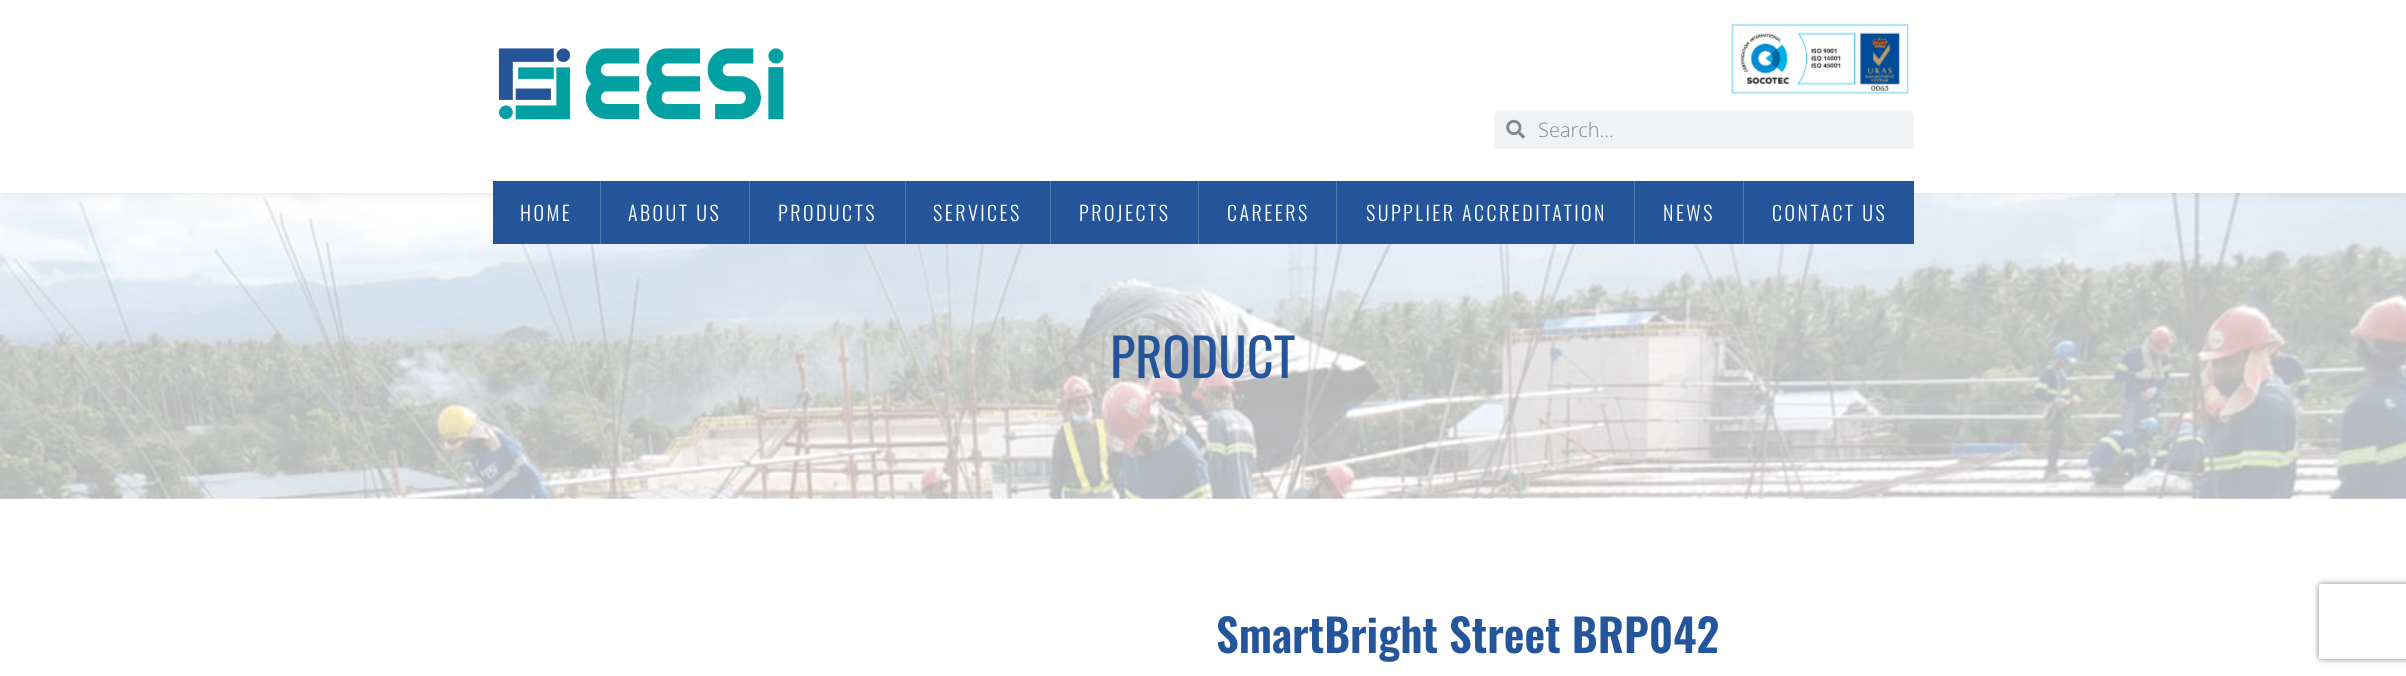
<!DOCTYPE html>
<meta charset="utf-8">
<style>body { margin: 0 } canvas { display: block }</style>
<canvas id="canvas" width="2406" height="676"></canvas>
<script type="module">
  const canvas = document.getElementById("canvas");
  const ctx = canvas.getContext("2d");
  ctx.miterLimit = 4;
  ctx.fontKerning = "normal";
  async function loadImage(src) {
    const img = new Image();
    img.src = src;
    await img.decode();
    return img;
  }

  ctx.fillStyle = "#ffffff";
  ctx.fillRect(0, 0, 2406, 676);
  ctx.drawImage(await loadImage("img4.png"), 0, 193, 2406, 306);
  ctx.fillStyle = "rgba(0, 0, 0, 0.1)";
  ctx.filter = "blur(6px)";
  ctx.beginPath();
  ctx.rect(0, 0, 2406, 193);
  ctx.fill();
  ctx.filter = "none";
  ctx.fillStyle = "#ffffff";
  ctx.fillRect(0, 0, 2406, 193);
  ctx.drawImage(await loadImage("img1.png"), 498, 48, 286, 72);
  ctx.drawImage(await loadImage("img2.png"), 1731, 23, 178, 71);
  ctx.fillStyle = "#f1f2f3";
  ctx.beginPath();
  ctx.roundRect(1494, 111, 420, 38, 6);
  ctx.fill();
  ctx.drawImage(await loadImage("img3.png"), 1506, 119, 19, 20);
  ctx.font = "300 20px Open Sans";
  ctx.fillStyle = "#868a8e";
  ctx.fillText("Search...", 1538, 137);
  ctx.fillStyle = "#24559a";
  ctx.fillRect(493, 181, 1421, 63);
  ctx.letterSpacing = "2.5px";
  ctx.font = "300 20px Oswald";
  ctx.fillStyle = "#ffffff";
  ctx.fillText("HOME", 520, 221);
  ctx.fillStyle = "#547ab0";
  ctx.fillRect(600, 181, 1, 63);
  ctx.fillStyle = "#ffffff";
  ctx.fillText("ABOUT US", 628, 221);
  ctx.fillStyle = "#547ab0";
  ctx.fillRect(749, 181, 1, 63);
  ctx.fillStyle = "#ffffff";
  ctx.fillText("PRODUCTS", 778, 221);
  ctx.fillStyle = "#547ab0";
  ctx.fillRect(905, 181, 1, 63);
  ctx.fillStyle = "#ffffff";
  ctx.fillText("SERVICES", 933, 221);
  ctx.fillStyle = "#547ab0";
  ctx.fillRect(1050, 181, 1, 63);
  ctx.fillStyle = "#ffffff";
  ctx.fillText("PROJECTS", 1079, 221);
  ctx.fillStyle = "#547aaf";
  ctx.fillRect(1198, 181, 1, 63);
  ctx.fillStyle = "#ffffff";
  ctx.fillText("CAREERS", 1227, 221);
  ctx.fillStyle = "#547aaf";
  ctx.fillRect(1336, 181, 1, 63);
  ctx.fillStyle = "#ffffff";
  ctx.fillText("SUPPLIER ACCREDITATION", 1366, 221);
  ctx.fillStyle = "#547ab0";
  ctx.fillRect(1634, 181, 1, 63);
  ctx.fillStyle = "#ffffff";
  ctx.fillText("NEWS", 1663, 221);
  ctx.fillStyle = "#547aaf";
  ctx.fillRect(1743, 181, 1, 63);
  ctx.fillStyle = "#ffffff";
  ctx.fillText("CONTACT US", 1772, 221);
  ctx.letterSpacing = "0px";
  ctx.font = "52.5px Oswald";
  ctx.fillStyle = "#24559a";
  ctx.fillText("PRODUCT", 1110, 378);
  ctx.font = "600 45px Oswald";
  ctx.fillText("SmartBright Street BRP042", 1216, 653);
  ctx.save();
  ctx.beginPath();
  ctx.moveTo(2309, 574);
  ctx.lineTo(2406, 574);
  ctx.lineTo(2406, 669);
  ctx.lineTo(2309, 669);
  ctx.closePath();
  ctx.moveTo(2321.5, 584);
  ctx.lineTo(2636.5, 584);
  ctx.bezierCurveTo(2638, 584, 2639, 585, 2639, 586.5);
  ctx.lineTo(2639, 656.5);
  ctx.bezierCurveTo(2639, 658, 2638, 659, 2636.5, 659);
  ctx.lineTo(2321.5, 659);
  ctx.bezierCurveTo(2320, 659, 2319, 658, 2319, 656.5);
  ctx.lineTo(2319, 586.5);
  ctx.bezierCurveTo(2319, 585, 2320, 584, 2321.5, 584);
  ctx.closePath();
  ctx.clip("evenodd");
  ctx.fillStyle = "#808080";
  ctx.filter = "blur(3px)";
  ctx.beginPath();
  ctx.roundRect(2319, 584, 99, 75, 2.5);
  ctx.fill();
  ctx.filter = "none";
  ctx.restore();
</script>
